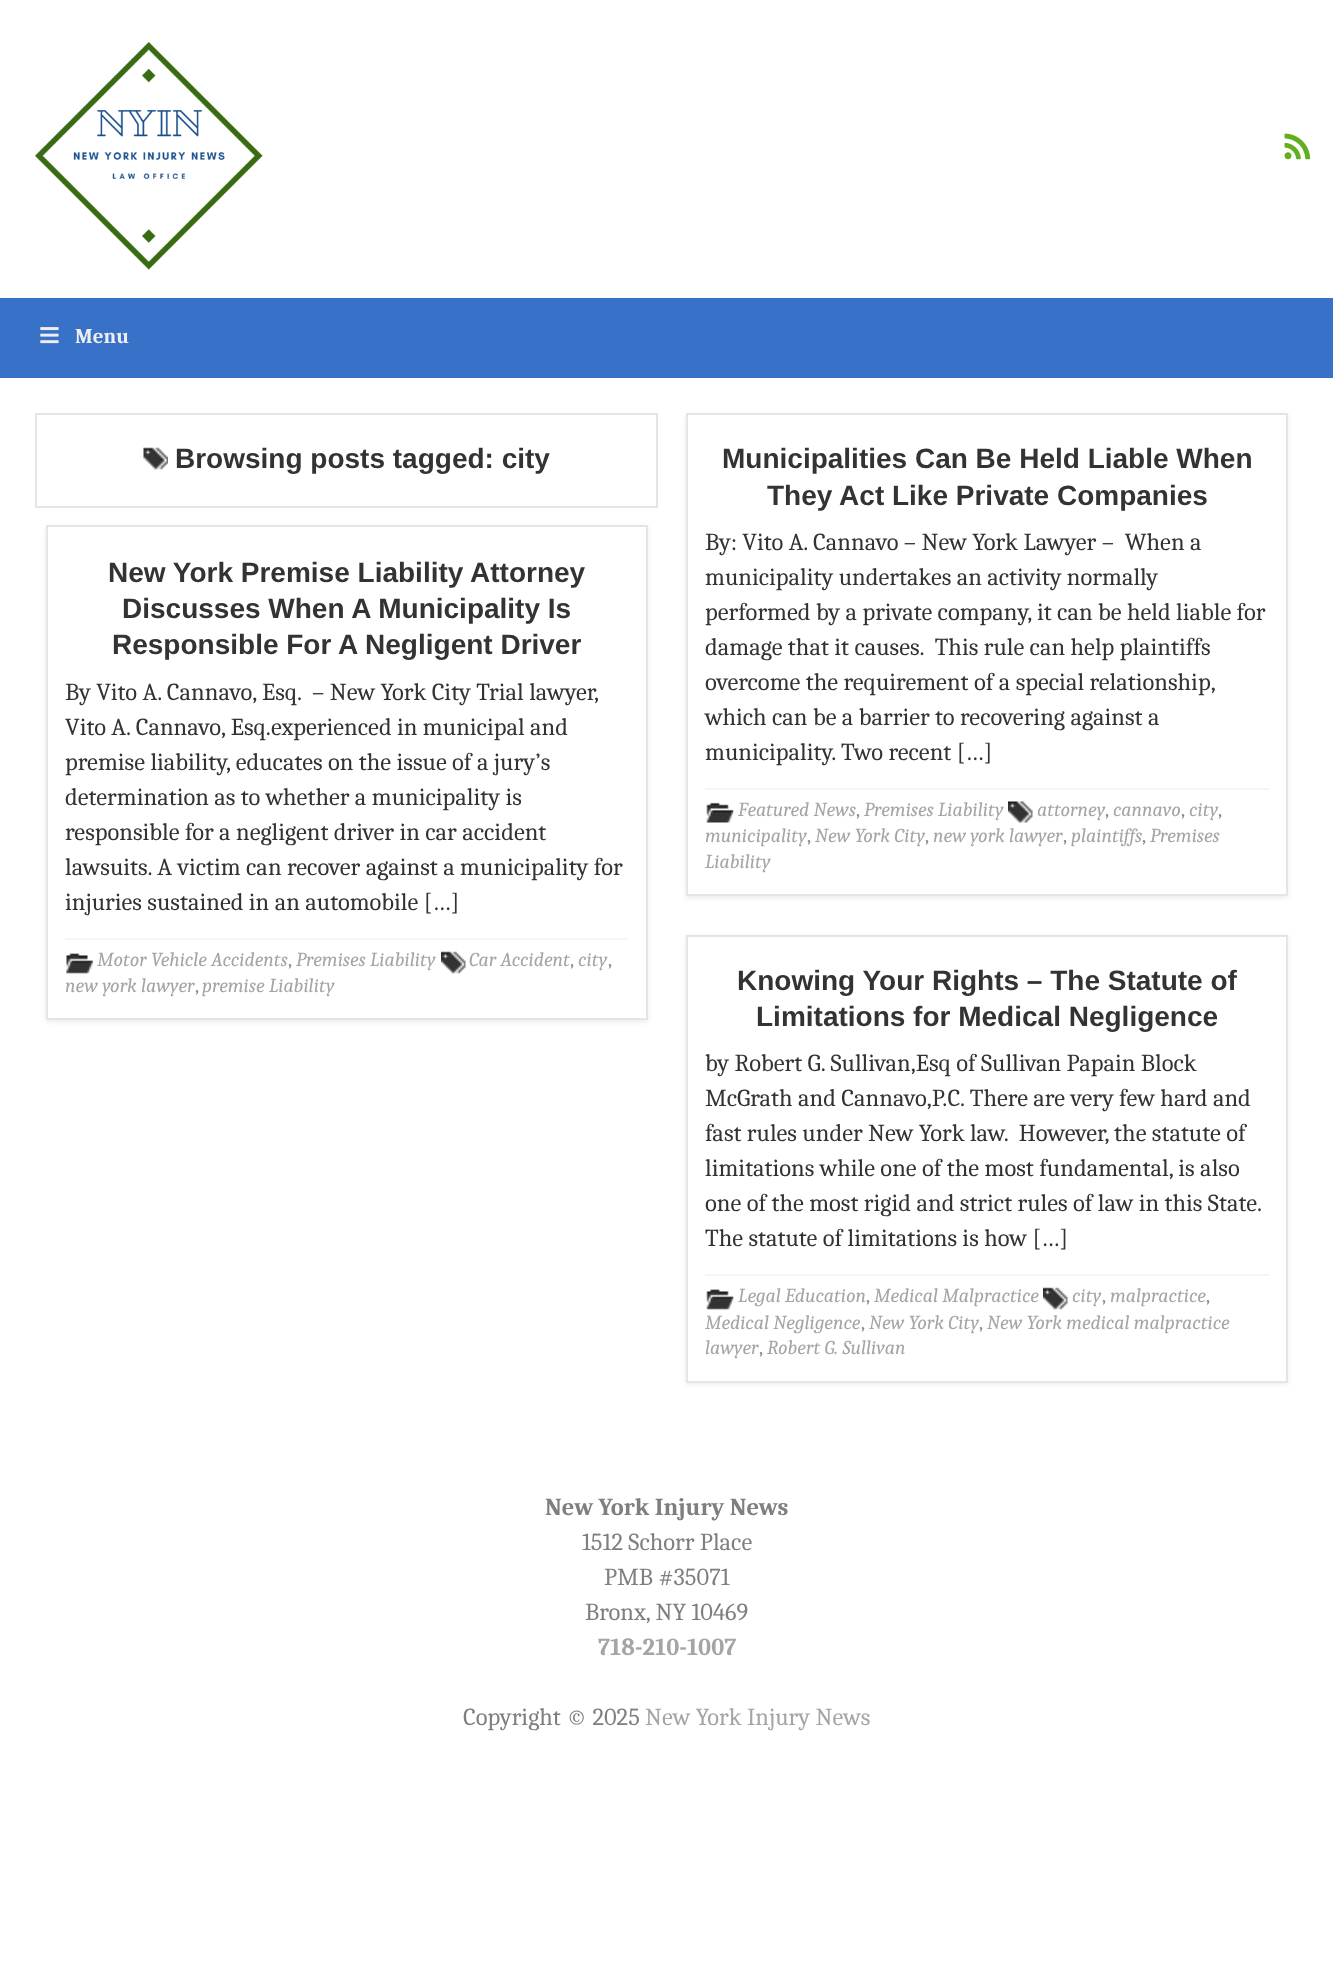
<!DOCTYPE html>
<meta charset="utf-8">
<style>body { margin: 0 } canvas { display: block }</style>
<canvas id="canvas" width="1333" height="1981"></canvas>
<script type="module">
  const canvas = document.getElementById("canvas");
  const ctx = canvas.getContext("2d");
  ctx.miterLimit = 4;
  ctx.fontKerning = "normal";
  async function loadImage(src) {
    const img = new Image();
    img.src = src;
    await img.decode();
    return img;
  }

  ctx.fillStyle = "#ffffff";
  ctx.fillRect(0, 0, 1333, 1981);
  ctx.drawImage(await loadImage("img1.png"), 35, 42, 228, 228);
  ctx.drawImage(await loadImage("img2.png"), 1284, 133, 27, 27);
  ctx.fillStyle = "#3771c8";
  ctx.fillRect(0, 298, 1333, 80);
  ctx.drawImage(await loadImage("img3.png"), 40, 327, 19, 17);
  ctx.font = "bold 21px Caladea";
  ctx.fillStyle = "#eeeeee";
  ctx.fillText("Menu", 75, 343);
  ctx.strokeStyle = "#e5e5e5";
  ctx.lineWidth = 2;
  ctx.strokeRect(36, 414, 621, 93);
  ctx.drawImage(await loadImage("img4.png"), 143, 447, 25, 23);
  ctx.font = "bold 28px Liberation Sans";
  ctx.fillStyle = "#333333";
  ctx.fillText("Browsing posts tagged: city", 175, 468);
  ctx.save();
  ctx.beginPath();
  ctx.moveTo(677, 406);
  ctx.lineTo(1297, 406);
  ctx.lineTo(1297, 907);
  ctx.lineTo(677, 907);
  ctx.closePath();
  ctx.moveTo(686, 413);
  ctx.lineTo(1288, 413);
  ctx.lineTo(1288, 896);
  ctx.lineTo(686, 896);
  ctx.closePath();
  ctx.clip("evenodd");
  ctx.fillStyle = "rgba(0, 0, 0, 0.08)";
  ctx.filter = "blur(2.5px)";
  ctx.beginPath();
  ctx.rect(686, 415, 602, 483);
  ctx.fill();
  ctx.filter = "none";
  ctx.restore();
  ctx.strokeRect(687, 414, 600, 481);
  ctx.fillText("Municipalities Can Be Held Liable When", 722, 468);
  ctx.fillText("They Act Like Private Companies", 767, 505);
  ctx.font = "24.5px Caladea";
  ctx.fillText("By: Vito A. Cannavo – New York Lawyer –  When a", 705, 550);
  ctx.fillText("municipality undertakes an activity normally", 705, 585);
  ctx.fillText("performed by a private company, it can be held liable for", 705, 620);
  ctx.fillText("damage that it causes.  This rule can help plaintiffs", 705, 655);
  ctx.fillText("overcome the requirement of a special relationship,", 705, 690);
  ctx.fillText("which can be a barrier to recovering against a", 705, 725);
  ctx.fillText("municipality. Two recent […]", 705, 760);
  ctx.fillStyle = "#f5f5f5";
  ctx.fillRect(705, 788, 564, 2);
  ctx.drawImage(await loadImage("img5.png"), 706, 802, 28, 21);
  ctx.font = "italic 19.8px Caladea";
  ctx.fillStyle = "#a5a5a5";
  ctx.fillText("Featured News", 738, 816);
  ctx.font = "19.8px Caladea";
  ctx.fillStyle = "#888888";
  ctx.fillText(",", 856, 816);
  ctx.font = "italic 19.8px Caladea";
  ctx.fillStyle = "#a5a5a5";
  ctx.fillText("Premises Liability", 864, 816);
  ctx.drawImage(await loadImage("img6.png"), 1008, 801, 25, 22);
  ctx.fillText("attorney", 1037, 816);
  ctx.font = "19.8px Caladea";
  ctx.fillStyle = "#888888";
  ctx.fillText(",", 1105, 816);
  ctx.font = "italic 19.8px Caladea";
  ctx.fillStyle = "#a5a5a5";
  ctx.fillText("cannavo", 1113, 816);
  ctx.font = "19.8px Caladea";
  ctx.fillStyle = "#888888";
  ctx.fillText(",", 1181, 816);
  ctx.font = "italic 19.8px Caladea";
  ctx.fillStyle = "#a5a5a5";
  ctx.fillText("city", 1189, 816);
  ctx.font = "19.8px Caladea";
  ctx.fillStyle = "#888888";
  ctx.fillText(",", 1218, 816);
  ctx.font = "italic 19.8px Caladea";
  ctx.fillStyle = "#a5a5a5";
  ctx.fillText("municipality", 705, 842);
  ctx.font = "19.8px Caladea";
  ctx.fillStyle = "#888888";
  ctx.fillText(",", 807, 842);
  ctx.font = "italic 19.8px Caladea";
  ctx.fillStyle = "#a5a5a5";
  ctx.fillText("New York City", 815, 842);
  ctx.font = "19.8px Caladea";
  ctx.fillStyle = "#888888";
  ctx.fillText(",", 925, 842);
  ctx.font = "italic 19.8px Caladea";
  ctx.fillStyle = "#a5a5a5";
  ctx.fillText("new york lawyer", 933, 842);
  ctx.font = "19.8px Caladea";
  ctx.fillStyle = "#888888";
  ctx.fillText(",", 1063, 842);
  ctx.font = "italic 19.8px Caladea";
  ctx.fillStyle = "#a5a5a5";
  ctx.fillText("plaintiffs", 1071, 842);
  ctx.font = "19.8px Caladea";
  ctx.fillStyle = "#888888";
  ctx.fillText(",", 1142, 842);
  ctx.font = "italic 19.8px Caladea";
  ctx.fillStyle = "#a5a5a5";
  ctx.fillText("Premises", 1150, 842);
  ctx.fillText("Liability", 705, 868);
  ctx.fillStyle = "rgba(0, 0, 0, 0.08)";
  ctx.filter = "blur(2.5px)";
  ctx.beginPath();
  ctx.rect(46, 527, 602, 495);
  ctx.fill();
  ctx.filter = "none";
  ctx.fillStyle = "#ffffff";
  ctx.beginPath();
  ctx.rect(47, 526, 600, 493);
  ctx.fill();
  ctx.stroke();
  ctx.font = "bold 28px Liberation Sans";
  ctx.fillStyle = "#333333";
  ctx.fillText("New York Premise Liability Attorney", 108, 582);
  ctx.fillText("Discusses When A Municipality Is", 122, 618);
  ctx.fillText("Responsible For A Negligent Driver", 112, 654);
  ctx.font = "24.5px Caladea";
  ctx.fillText("By Vito A. Cannavo, Esq.  – New York City Trial lawyer,", 65, 700);
  ctx.fillText("Vito A. Cannavo, Esq.experienced in municipal and", 65, 735);
  ctx.fillText("premise liability, educates on the issue of a jury’s", 65, 770);
  ctx.fillText("determination as to whether a municipality is", 65, 805);
  ctx.fillText("responsible for a negligent driver in car accident", 65, 840);
  ctx.fillText("lawsuits. A victim can recover against a municipality for", 65, 875);
  ctx.fillText("injuries sustained in an automobile […]", 65, 910);
  ctx.fillStyle = "#f5f5f5";
  ctx.fillRect(65, 938, 563, 2);
  ctx.drawImage(await loadImage("img7.png"), 66, 953, 27, 21);
  ctx.font = "italic 19.8px Caladea";
  ctx.fillStyle = "#a5a5a5";
  ctx.fillText("Motor Vehicle Accidents", 97, 966);
  ctx.font = "19.8px Caladea";
  ctx.fillStyle = "#888888";
  ctx.fillText(",", 288, 966);
  ctx.font = "italic 19.8px Caladea";
  ctx.fillStyle = "#a5a5a5";
  ctx.fillText("Premises Liability", 296, 966);
  ctx.drawImage(await loadImage("img8.png"), 441, 951, 25, 23);
  ctx.fillText("Car Accident", 469, 966);
  ctx.font = "19.8px Caladea";
  ctx.fillStyle = "#888888";
  ctx.fillText(",", 570, 966);
  ctx.font = "italic 19.8px Caladea";
  ctx.fillStyle = "#a5a5a5";
  ctx.fillText("city", 578, 966);
  ctx.font = "19.8px Caladea";
  ctx.fillStyle = "#888888";
  ctx.fillText(",", 608, 966);
  ctx.font = "italic 19.8px Caladea";
  ctx.fillStyle = "#a5a5a5";
  ctx.fillText("new york lawyer", 65, 992);
  ctx.font = "19.8px Caladea";
  ctx.fillStyle = "#888888";
  ctx.fillText(",", 195, 992);
  ctx.font = "italic 19.8px Caladea";
  ctx.fillStyle = "#a5a5a5";
  ctx.fillText("premise Liability", 202, 992);
  ctx.fillStyle = "rgba(0, 0, 0, 0.08)";
  ctx.filter = "blur(2.5px)";
  ctx.beginPath();
  ctx.rect(686, 936, 602, 448);
  ctx.fill();
  ctx.filter = "none";
  ctx.fillStyle = "#ffffff";
  ctx.beginPath();
  ctx.rect(687, 936, 600, 446);
  ctx.fill();
  ctx.stroke();
  ctx.font = "bold 28px Liberation Sans";
  ctx.fillStyle = "#333333";
  ctx.fillText("Knowing Your Rights – The Statute of", 737, 990);
  ctx.fillText("Limitations for Medical Negligence", 756, 1026);
  ctx.font = "24.5px Caladea";
  ctx.fillText("by Robert G. Sullivan,Esq of Sullivan Papain Block", 705, 1071);
  ctx.fillText("McGrath and Cannavo,P.C. There are very few hard and", 705, 1106);
  ctx.fillText("fast rules under New York law.  However, the statute of", 705, 1141);
  ctx.fillText("limitations while one of the most fundamental, is also", 705, 1176);
  ctx.fillText("one of the most rigid and strict rules of law in this State.", 705, 1211);
  ctx.fillText("The statute of limitations is how […]", 705, 1246);
  ctx.fillStyle = "#f5f5f5";
  ctx.fillRect(705, 1274, 564, 2);
  ctx.drawImage(await loadImage("img9.png"), 706, 1289, 28, 21);
  ctx.font = "italic 19.8px Caladea";
  ctx.fillStyle = "#a5a5a5";
  ctx.fillText("Legal Education", 738, 1302);
  ctx.font = "19.8px Caladea";
  ctx.fillStyle = "#888888";
  ctx.fillText(",", 866, 1302);
  ctx.font = "italic 19.8px Caladea";
  ctx.fillStyle = "#a5a5a5";
  ctx.fillText("Medical Malpractice", 874, 1302);
  ctx.drawImage(await loadImage("img10.png"), 1043, 1287, 25, 23);
  ctx.fillText("city", 1072, 1302);
  ctx.font = "19.8px Caladea";
  ctx.fillStyle = "#888888";
  ctx.fillText(",", 1102, 1302);
  ctx.font = "italic 19.8px Caladea";
  ctx.fillStyle = "#a5a5a5";
  ctx.fillText("malpractice", 1110, 1302);
  ctx.font = "19.8px Caladea";
  ctx.fillStyle = "#888888";
  ctx.fillText(",", 1206, 1302);
  ctx.font = "italic 19.8px Caladea";
  ctx.fillStyle = "#a5a5a5";
  ctx.fillText("Medical Negligence", 705, 1329);
  ctx.font = "19.8px Caladea";
  ctx.fillStyle = "#888888";
  ctx.fillText(",", 861, 1329);
  ctx.font = "italic 19.8px Caladea";
  ctx.fillStyle = "#a5a5a5";
  ctx.fillText("New York City", 869, 1329);
  ctx.font = "19.8px Caladea";
  ctx.fillStyle = "#888888";
  ctx.fillText(",", 979, 1329);
  ctx.font = "italic 19.8px Caladea";
  ctx.fillStyle = "#a5a5a5";
  ctx.fillText("New York medical malpractice", 987, 1329);
  ctx.fillText("lawyer", 705, 1354);
  ctx.font = "19.8px Caladea";
  ctx.fillStyle = "#888888";
  ctx.fillText(",", 759, 1354);
  ctx.font = "italic 19.8px Caladea";
  ctx.fillStyle = "#a5a5a5";
  ctx.fillText("Robert G. Sullivan", 767, 1354);
  ctx.font = "bold 24.5px Caladea";
  ctx.fillStyle = "#7f7f7f";
  ctx.fillText("New York Injury News", 545, 1515);
  ctx.font = "24.5px Caladea";
  ctx.fillText("1512 Schorr Place", 582, 1550);
  ctx.fillText("PMB #35071", 604, 1585);
  ctx.fillText("Bronx, NY 10469", 585, 1620);
  ctx.font = "bold 24.5px Caladea";
  ctx.fillStyle = "#a5a5a5";
  ctx.fillText("718-210-1007", 598, 1655);
  ctx.font = "24.5px Caladea";
  ctx.fillStyle = "#7f7f7f";
  ctx.fillText("Copyright © 2025", 463, 1725);
  ctx.fillStyle = "#a5a5a5";
  ctx.fillText("New York Injury News", 645, 1725);
</script>
